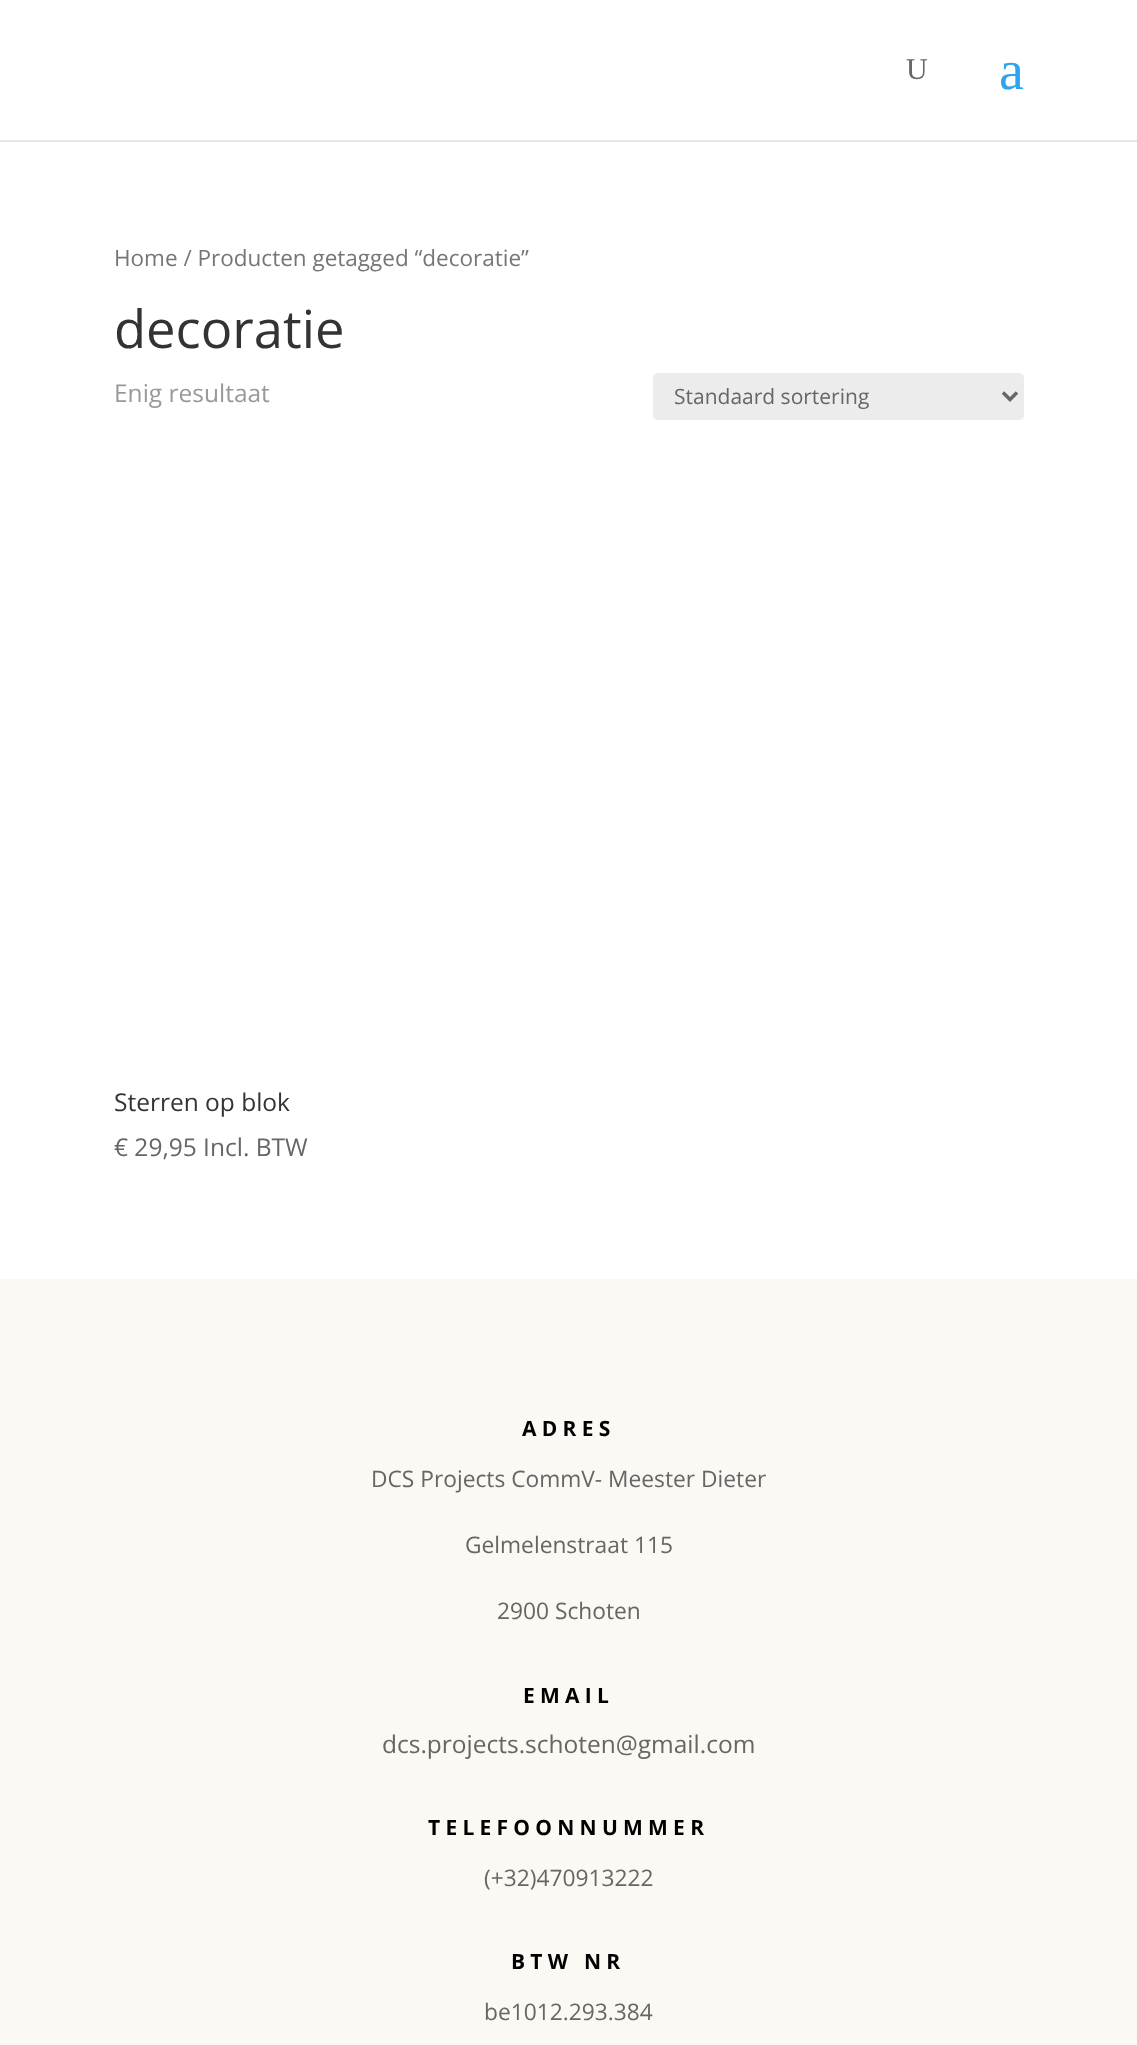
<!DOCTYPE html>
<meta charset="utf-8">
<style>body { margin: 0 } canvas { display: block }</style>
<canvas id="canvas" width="1137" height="2045"></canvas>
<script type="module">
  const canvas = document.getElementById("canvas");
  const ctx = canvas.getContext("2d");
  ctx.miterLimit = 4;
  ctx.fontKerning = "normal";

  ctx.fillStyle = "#ffffff";
  ctx.fillRect(0, 0, 1137, 2045);
  ctx.fillStyle = "#e6e6e6";
  ctx.beginPath();
  ctx.moveTo(0, 140);
  ctx.lineTo(0, 142);
  ctx.lineTo(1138, 142);
  ctx.lineTo(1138, 2);
  ctx.lineTo(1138, 140);
  ctx.closePath();
  ctx.fill();
  ctx.font = "30px Liberation Serif";
  ctx.fillStyle = "#666666";
  ctx.fillText("U", 906, 79);
  ctx.font = "56px Liberation Serif";
  ctx.fillStyle = "#2ea3f2";
  ctx.fillText("a", 999, 89);
  ctx.font = "22.5px Open Sans";
  ctx.fillStyle = "#767676";
  ctx.fillText("Home / Producten getagged “decoratie”", 114, 266);
  ctx.font = "52.5px Open Sans";
  ctx.fillStyle = "#333333";
  ctx.fillText("decoratie", 114, 348);
  ctx.font = "24.5px Open Sans";
  ctx.fillStyle = "#999999";
  ctx.fillText("Enig resultaat", 114, 402);
  ctx.fillStyle = "#ececec";
  ctx.beginPath();
  ctx.roundRect(653, 373, 371, 47, 5);
  ctx.fill();
  ctx.beginPath();
  ctx.moveTo(1003, 392.5);
  ctx.lineTo(1010, 399.5);
  ctx.lineTo(1017, 392.5);
  ctx.strokeStyle = "#666666";
  ctx.lineWidth = 3.5;
  ctx.stroke();
  ctx.font = "21px Open Sans";
  ctx.fillStyle = "#666666";
  ctx.fillText("Standaard sortering", 674, 404);
  ctx.font = "24.5px Open Sans";
  ctx.fillStyle = "#333333";
  ctx.fillText("Sterren op blok", 114, 1111);
  ctx.fillStyle = "#666666";
  ctx.fillText("€ 29,95 Incl. BTW", 114, 1156);
  ctx.fillStyle = "#fcf8f3";
  ctx.fillRect(0, 1279, 1137, 766);
  ctx.letterSpacing = "5.25px";
  ctx.font = "bold 21px Open Sans";
  ctx.fillStyle = "#000000";
  ctx.fillText("ADRES", 522, 1436);
  ctx.letterSpacing = "0px";
  ctx.font = "22.75px Open Sans";
  ctx.fillStyle = "#666666";
  ctx.fillText("DCS Projects CommV- Meester Dieter", 371, 1487);
  ctx.fillText("Gelmelenstraat 115", 465, 1553);
  ctx.fillText("2900 Schoten", 497, 1619);
  ctx.letterSpacing = "5.25px";
  ctx.font = "bold 21px Open Sans";
  ctx.fillStyle = "#000000";
  ctx.fillText("EMAIL", 523, 1703);
  ctx.letterSpacing = "0px";
  ctx.font = "24.5px Open Sans";
  ctx.fillStyle = "#666666";
  ctx.fillText("dcs.projects.schoten@gmail.com", 382, 1753);
  ctx.letterSpacing = "5.25px";
  ctx.font = "bold 21px Open Sans";
  ctx.fillStyle = "#000000";
  ctx.fillText("TELEFOONNUMMER", 428, 1835);
  ctx.letterSpacing = "0px";
  ctx.font = "22.75px Open Sans";
  ctx.fillStyle = "#666666";
  ctx.fillText("(+32)470913222", 484, 1886);
  ctx.letterSpacing = "5.25px";
  ctx.font = "bold 21px Open Sans";
  ctx.fillStyle = "#000000";
  ctx.fillText("BTW NR", 511, 1969);
  ctx.letterSpacing = "0px";
  ctx.font = "22.75px Open Sans";
  ctx.fillStyle = "#666666";
  ctx.fillText("be1012.293.384", 484, 2020);
</script>
